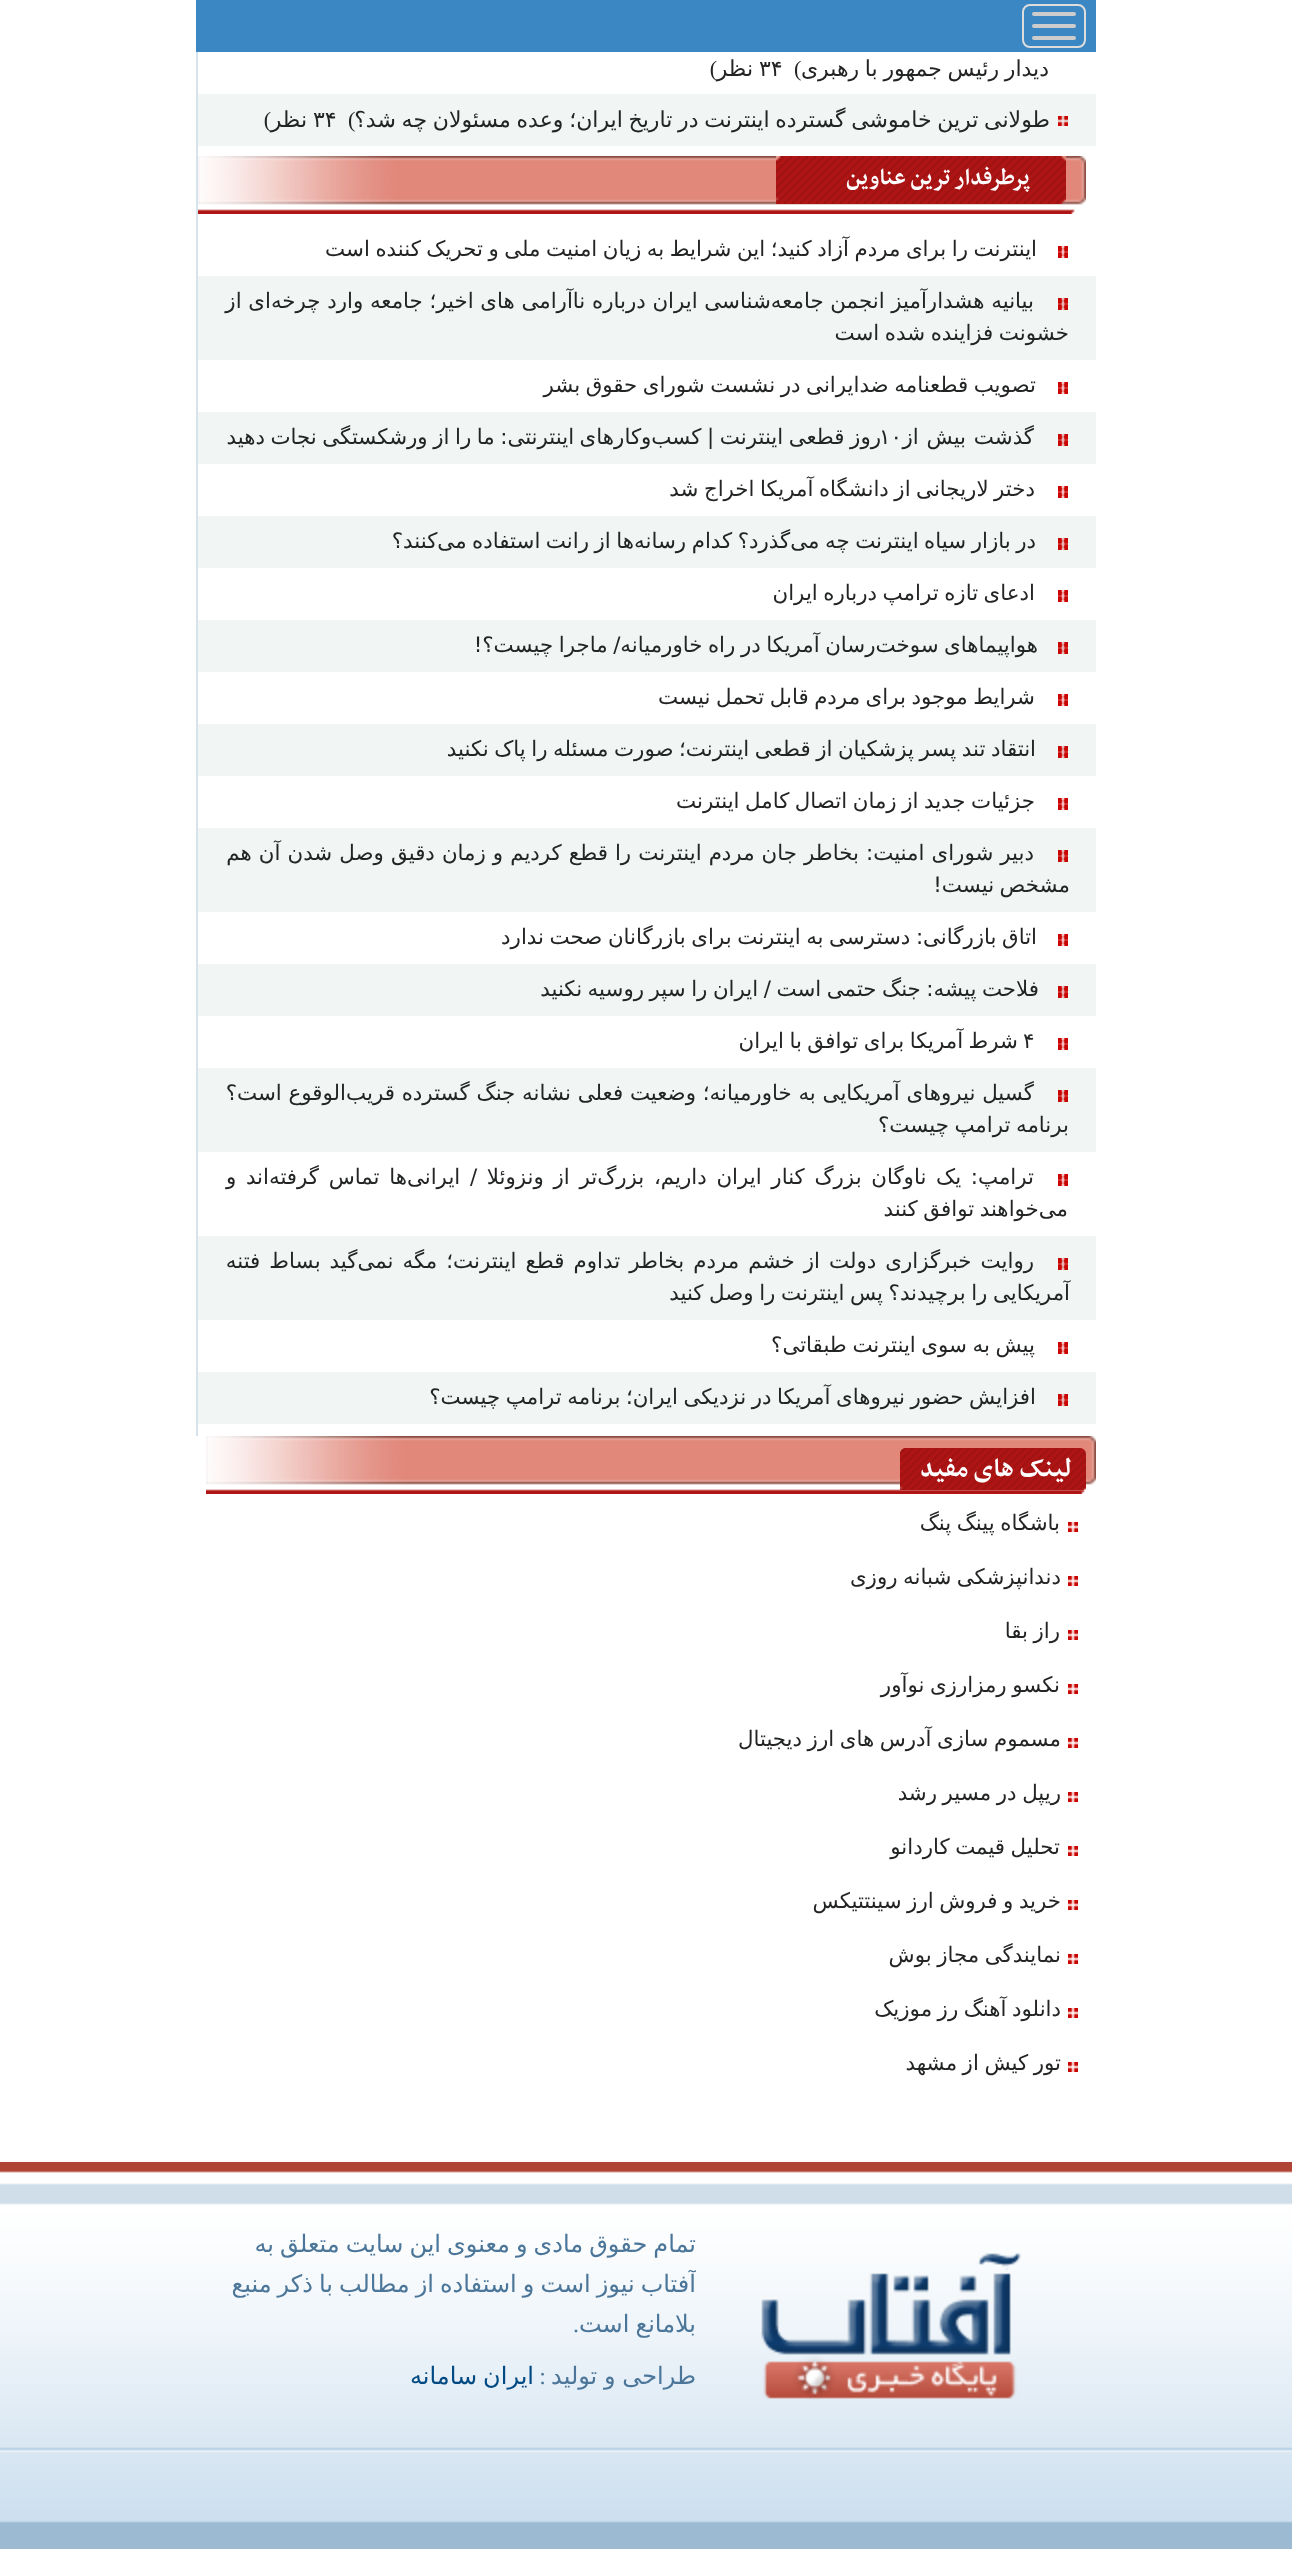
<!DOCTYPE html>
<meta charset="utf-8">
<style>body { margin: 0 } canvas { display: block }</style>
<canvas id="canvas" width="1292" height="2549"></canvas>
<script type="module">
  const canvas = document.getElementById("canvas");
  const ctx = canvas.getContext("2d");
  ctx.miterLimit = 4;
  ctx.fontKerning = "normal";
  async function loadImage(src) {
    const img = new Image();
    img.src = src;
    await img.decode();
    return img;
  }

  ctx.fillStyle = "#ffffff";
  ctx.fillRect(0, 0, 1292, 2549);
  ctx.fillStyle = "#3a87c4";
  ctx.fillRect(196, 0, 900, 52);
  ctx.beginPath();
  ctx.roundRect(1023, 5, 62, 42, 7);
  ctx.strokeStyle = "#dddddd";
  ctx.lineWidth = 2;
  ctx.stroke();
  ctx.fillStyle = "#cccccc";
  ctx.beginPath();
  ctx.roundRect(1032, 12, 44, 4, 2);
  ctx.fill();
  ctx.beginPath();
  ctx.roundRect(1032, 24, 44, 4, 2);
  ctx.fill();
  ctx.beginPath();
  ctx.roundRect(1032, 36, 44, 4, 2);
  ctx.fill();
  ctx.fillStyle = "#d6e3ec";
  ctx.fillRect(196, 52, 2, 1384);
  ctx.wordSpacing = "-1.25px";
  ctx.direction = "rtl";
  ctx.font = "22px DejaVu Sans";
  ctx.fillStyle = "#232524";
  ctx.fillText("دیدار رئیس جمهور با رهبری", 1049, 76);
  ctx.wordSpacing = "0px";
  ctx.direction = "ltr";
  ctx.font = "22px Liberation Serif";
  ctx.fillText("(", 794, 76);
  ctx.font = "22px DejaVu Sans";
  ctx.fillText("۳۴", 759, 76);
  ctx.direction = "rtl";
  ctx.font = "22px Liberation Serif";
  ctx.fillText(")", 717, 76);
  ctx.font = "22px DejaVu Sans";
  ctx.fillText("نظر", 753, 76);
  ctx.fillStyle = "#f1f5f4";
  ctx.fillRect(198, 94, 898, 52);
  ctx.drawImage(await loadImage("img1.png"), 1058, 116, 10, 10);
  ctx.wordSpacing = "-1.25px";
  ctx.fillStyle = "#232524";
  ctx.fillText("طولانی ترین خاموشی گسترده اینترنت در تاریخ ایران؛ وعده مسئولان چه شد؟", 1050, 127);
  ctx.wordSpacing = "0px";
  ctx.direction = "ltr";
  ctx.font = "22px Liberation Serif";
  ctx.fillText("(", 348, 127);
  ctx.font = "22px DejaVu Sans";
  ctx.fillText("۳۴", 313, 127);
  ctx.direction = "rtl";
  ctx.font = "22px Liberation Serif";
  ctx.fillText(")", 271, 127);
  ctx.font = "22px DejaVu Sans";
  ctx.fillText("نظر", 307, 127);
  ctx.drawImage(await loadImage("img2.png"), 198, 156, 888, 58);
  ctx.drawImage(await loadImage("img3.png"), 776, 156, 290, 48);
  ctx.font = "bold 26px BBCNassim";
  ctx.fillStyle = "#ffffff";
  ctx.fillText("پرطرفدار ترین عناوین", 1030, 184);
  ctx.drawImage(await loadImage("img5.png"), 1058, 248, 10, 10);
  ctx.drawImage(await loadImage("img4.png"), 1058, 246, 10, 10);
  ctx.wordSpacing = "-1.25px";
  ctx.font = "21.35px DejaVu Sans";
  ctx.fillStyle = "#232524";
  ctx.fillText("اینترنت را برای مردم آزاد کنید؛ این شرایط به زیان امنیت ملی و تحریک کننده است", 1037, 256);
  ctx.fillStyle = "#f1f5f4";
  ctx.fillRect(198, 276, 898, 84);
  ctx.drawImage(await loadImage("img1.png"), 1058, 300, 10, 10);
  ctx.wordSpacing = "-0.1px";
  ctx.fillStyle = "#232524";
  ctx.fillText("بیانیه هشدارآمیز انجمن جامعه‌شناسی ایران درباره ناآرامی های اخیر؛ جامعه وارد چرخه‌ای از", 1034, 308);
  ctx.wordSpacing = "-1.25px";
  ctx.fillText("خشونت فزاینده شده است", 1069, 340);
  ctx.drawImage(await loadImage("img6.png"), 1058, 298, 10, 10);
  ctx.drawImage(await loadImage("img5.png"), 1058, 384, 10, 10);
  ctx.drawImage(await loadImage("img4.png"), 1058, 382, 10, 10);
  ctx.fillText("تصویب قطعنامه ضدایرانی در نشست شورای حقوق بشر", 1036, 392);
  ctx.fillStyle = "#f1f5f4";
  ctx.fillRect(198, 412, 898, 52);
  ctx.drawImage(await loadImage("img1.png"), 1058, 436, 10, 10);
  ctx.drawImage(await loadImage("img6.png"), 1058, 434, 10, 10);
  ctx.wordSpacing = "1px";
  ctx.fillStyle = "#232524";
  ctx.fillText("گذشت بیش از", 1034, 444);
  ctx.wordSpacing = "-1.25px";
  ctx.fillText("روز قطعی اینترنت | کسب‌وکارهای اینترنتی: ما را از ورشکستگی نجات دهید", 881, 444);
  ctx.wordSpacing = "0px";
  ctx.direction = "ltr";
  ctx.fillText("۱۰", 879, 444);
  ctx.drawImage(await loadImage("img5.png"), 1058, 488, 10, 10);
  ctx.drawImage(await loadImage("img4.png"), 1058, 486, 10, 10);
  ctx.wordSpacing = "-1.25px";
  ctx.direction = "rtl";
  ctx.fillText("دختر لاریجانی از دانشگاه آمریکا اخراج شد", 1035, 496);
  ctx.fillStyle = "#f1f5f4";
  ctx.fillRect(198, 516, 898, 52);
  ctx.drawImage(await loadImage("img1.png"), 1058, 540, 10, 10);
  ctx.drawImage(await loadImage("img6.png"), 1058, 538, 10, 10);
  ctx.fillStyle = "#232524";
  ctx.fillText("در بازار سیاه اینترنت چه می‌گذرد؟ کدام رسانه‌ها از رانت استفاده می‌کنند؟", 1036, 548);
  ctx.drawImage(await loadImage("img5.png"), 1058, 592, 10, 10);
  ctx.drawImage(await loadImage("img4.png"), 1058, 590, 10, 10);
  ctx.fillText("ادعای تازه ترامپ درباره ایران", 1035, 600);
  ctx.fillStyle = "#f1f5f4";
  ctx.fillRect(198, 620, 898, 52);
  ctx.drawImage(await loadImage("img1.png"), 1058, 644, 10, 10);
  ctx.drawImage(await loadImage("img6.png"), 1058, 642, 10, 10);
  ctx.fillStyle = "#232524";
  ctx.fillText("هواپیما‌های سوخت‌رسان آمریکا در راه خاورمیانه/ ماجرا چیست؟!", 1038, 652);
  ctx.drawImage(await loadImage("img5.png"), 1058, 696, 10, 10);
  ctx.drawImage(await loadImage("img4.png"), 1058, 694, 10, 10);
  ctx.fillText("شرایط موجود برای مردم قابل تحمل نیست", 1035, 704);
  ctx.fillStyle = "#f1f5f4";
  ctx.fillRect(198, 724, 898, 52);
  ctx.drawImage(await loadImage("img1.png"), 1058, 748, 10, 10);
  ctx.drawImage(await loadImage("img6.png"), 1058, 746, 10, 10);
  ctx.fillStyle = "#232524";
  ctx.fillText("انتقاد تند پسر پزشکیان از قطعی اینترنت؛ صورت مسئله را پاک نکنید", 1036, 756);
  ctx.drawImage(await loadImage("img5.png"), 1058, 800, 10, 10);
  ctx.drawImage(await loadImage("img4.png"), 1058, 798, 10, 10);
  ctx.fillText("جزئیات جدید از زمان اتصال کامل اینترنت", 1035, 808);
  ctx.fillStyle = "#f1f5f4";
  ctx.fillRect(198, 828, 898, 84);
  ctx.drawImage(await loadImage("img1.png"), 1058, 852, 10, 10);
  ctx.wordSpacing = "0.25px";
  ctx.fillStyle = "#232524";
  ctx.fillText("دبیر شورای امنیت: بخاطر جان مردم اینترنت را قطع کردیم و زمان دقیق وصل شدن آن هم", 1034, 860);
  ctx.wordSpacing = "-1.25px";
  ctx.fillText("مشخص نیست!", 1070, 892);
  ctx.drawImage(await loadImage("img6.png"), 1058, 850, 10, 10);
  ctx.drawImage(await loadImage("img5.png"), 1058, 936, 10, 10);
  ctx.drawImage(await loadImage("img4.png"), 1058, 934, 10, 10);
  ctx.fillText("اتاق بازرگانی: دسترسی به اینترنت برای بازرگانان صحت ندارد", 1037, 944);
  ctx.fillStyle = "#f1f5f4";
  ctx.fillRect(198, 964, 898, 52);
  ctx.drawImage(await loadImage("img1.png"), 1058, 988, 10, 10);
  ctx.drawImage(await loadImage("img6.png"), 1058, 986, 10, 10);
  ctx.fillStyle = "#232524";
  ctx.fillText("فلاحت پیشه: جنگ حتمی است / ایران را سپر روسیه نکنید", 1039, 996);
  ctx.drawImage(await loadImage("img5.png"), 1058, 1040, 10, 10);
  ctx.drawImage(await loadImage("img4.png"), 1058, 1038, 10, 10);
  ctx.wordSpacing = "0px";
  ctx.direction = "ltr";
  ctx.fillText("۴", 1023, 1048);
  ctx.wordSpacing = "-1.25px";
  ctx.direction = "rtl";
  ctx.fillText("شرط آمریکا برای توافق با ایران", 1018, 1048);
  ctx.fillStyle = "#f1f5f4";
  ctx.fillRect(198, 1068, 898, 84);
  ctx.drawImage(await loadImage("img1.png"), 1058, 1092, 10, 10);
  ctx.wordSpacing = "0px";
  ctx.fillStyle = "#232524";
  ctx.fillText("گسیل نیرو‌های آمریکایی به خاورمیانه؛ وضعیت فعلی نشانه جنگ گسترده قریب‌الوقوع است؟", 1034, 1100);
  ctx.wordSpacing = "-1.25px";
  ctx.fillText("برنامه ترامپ چیست؟", 1069, 1132);
  ctx.drawImage(await loadImage("img6.png"), 1058, 1090, 10, 10);
  ctx.drawImage(await loadImage("img5.png"), 1058, 1176, 10, 10);
  ctx.wordSpacing = "2.9px";
  ctx.fillText("ترامپ: یک ناوگان بزرگ کنار ایران داریم، بزرگ‌تر از ونزوئلا / ایرانی‌ها تماس گرفته‌اند و", 1034, 1184);
  ctx.wordSpacing = "-1.25px";
  ctx.fillText("می‌خواهند توافق کنند", 1068, 1216);
  ctx.drawImage(await loadImage("img4.png"), 1058, 1174, 10, 10);
  ctx.fillStyle = "#f1f5f4";
  ctx.fillRect(198, 1236, 898, 84);
  ctx.drawImage(await loadImage("img1.png"), 1058, 1260, 10, 10);
  ctx.wordSpacing = "2.25px";
  ctx.fillStyle = "#232524";
  ctx.fillText("روایت خبرگزاری دولت از خشم مردم بخاطر تداوم قطع اینترنت؛ مگه نمی‌گید بساط فتنه", 1034, 1268);
  ctx.wordSpacing = "-1.25px";
  ctx.fillText("آمریکایی را برچیدند؟ پس اینترنت را وصل کنید", 1070, 1300);
  ctx.drawImage(await loadImage("img6.png"), 1058, 1258, 10, 10);
  ctx.drawImage(await loadImage("img5.png"), 1058, 1344, 10, 10);
  ctx.drawImage(await loadImage("img4.png"), 1058, 1342, 10, 10);
  ctx.fillText("پیش به سوی اینترنت طبقاتی؟", 1035, 1352);
  ctx.fillStyle = "#f1f5f4";
  ctx.fillRect(198, 1372, 898, 52);
  ctx.drawImage(await loadImage("img1.png"), 1058, 1396, 10, 10);
  ctx.drawImage(await loadImage("img6.png"), 1058, 1394, 10, 10);
  ctx.fillStyle = "#232524";
  ctx.fillText("افزایش حضور نیرو‌های آمریکا در نزدیکی ایران؛ برنامه ترامپ چیست؟", 1036, 1404);
  ctx.drawImage(await loadImage("img7.png"), 206, 1436, 890, 58);
  ctx.drawImage(await loadImage("img8.png"), 900, 1448, 186, 42);
  ctx.wordSpacing = "0px";
  ctx.font = "bold 30px BBCNassim";
  ctx.fillStyle = "#ffffff";
  ctx.fillText("لینک های مفید", 1072, 1476);
  ctx.drawImage(await loadImage("img5.png"), 1068, 1522, 10, 10);
  ctx.wordSpacing = "-1.25px";
  ctx.font = "21.35px DejaVu Sans";
  ctx.fillStyle = "#232524";
  ctx.fillText("باشگاه پینگ پنگ", 1060, 1530);
  ctx.drawImage(await loadImage("img5.png"), 1068, 1576, 10, 10);
  ctx.fillText("دندانپزشکی شبانه روزی", 1061, 1584);
  ctx.drawImage(await loadImage("img5.png"), 1068, 1630, 10, 10);
  ctx.fillText("راز بقا", 1060, 1638);
  ctx.drawImage(await loadImage("img5.png"), 1068, 1684, 10, 10);
  ctx.fillText("نکسو رمزارزی نوآور", 1060, 1692);
  ctx.drawImage(await loadImage("img5.png"), 1068, 1738, 10, 10);
  ctx.fillText("مسموم سازی آدرس های ارز دیجیتال", 1061, 1746);
  ctx.drawImage(await loadImage("img5.png"), 1068, 1792, 10, 10);
  ctx.fillText("ریپل در مسیر رشد", 1061, 1800);
  ctx.drawImage(await loadImage("img5.png"), 1068, 1846, 10, 10);
  ctx.fillText("تحلیل قیمت کاردانو", 1060, 1854);
  ctx.drawImage(await loadImage("img5.png"), 1068, 1900, 10, 10);
  ctx.fillText("خرید و فروش ارز سینتتیکس", 1061, 1908);
  ctx.drawImage(await loadImage("img5.png"), 1068, 1954, 10, 10);
  ctx.fillText("نمایندگی مجاز بوش", 1061, 1962);
  ctx.drawImage(await loadImage("img5.png"), 1068, 2008, 10, 10);
  ctx.fillText("دانلود آهنگ رز موزیک", 1061, 2016);
  ctx.drawImage(await loadImage("img5.png"), 1068, 2062, 10, 10);
  ctx.fillText("تور کیش از مشهد", 1061, 2070);
  ctx.drawImage(await loadImage("img9.png"), 0, 2162, 1292, 387);
  ctx.drawImage(await loadImage("img10.png"), 761, 2253, 260, 147);
  ctx.save();
  ctx.beginPath();
  ctx.rect(196, 2224, 500, 120);
  ctx.clip();
  ctx.wordSpacing = "-1.6px";
  ctx.font = "24px DejaVu Sans";
  ctx.fillStyle = "#4b7699";
  ctx.fillText("تمام حقوق مادی و معنوی این سایت متعلق به", 696, 2252);
  ctx.fillText("آفتاب نیوز است و استفاده از مطالب با ذکر منبع", 696, 2292);
  ctx.restore();
  ctx.wordSpacing = "-1.6px";
  ctx.font = "24px DejaVu Sans";
  ctx.fillStyle = "#4b7699";
  ctx.fillText("بلامانع است", 696, 2332);
  ctx.wordSpacing = "0px";
  ctx.font = "24px Liberation Serif";
  ctx.fillText(".", 579, 2332);
  ctx.wordSpacing = "-1px";
  ctx.font = "24px DejaVu Sans";
  ctx.fillText("طراحی و تولید", 696, 2384);
  ctx.wordSpacing = "0px";
  ctx.font = "24px Liberation Serif";
  ctx.fillText(":", 546, 2384);
  ctx.wordSpacing = "-1.6px";
  ctx.font = "24px DejaVu Sans";
  ctx.fillStyle = "#004983";
  ctx.fillText("ایران سامانه", 534, 2384);
</script>
